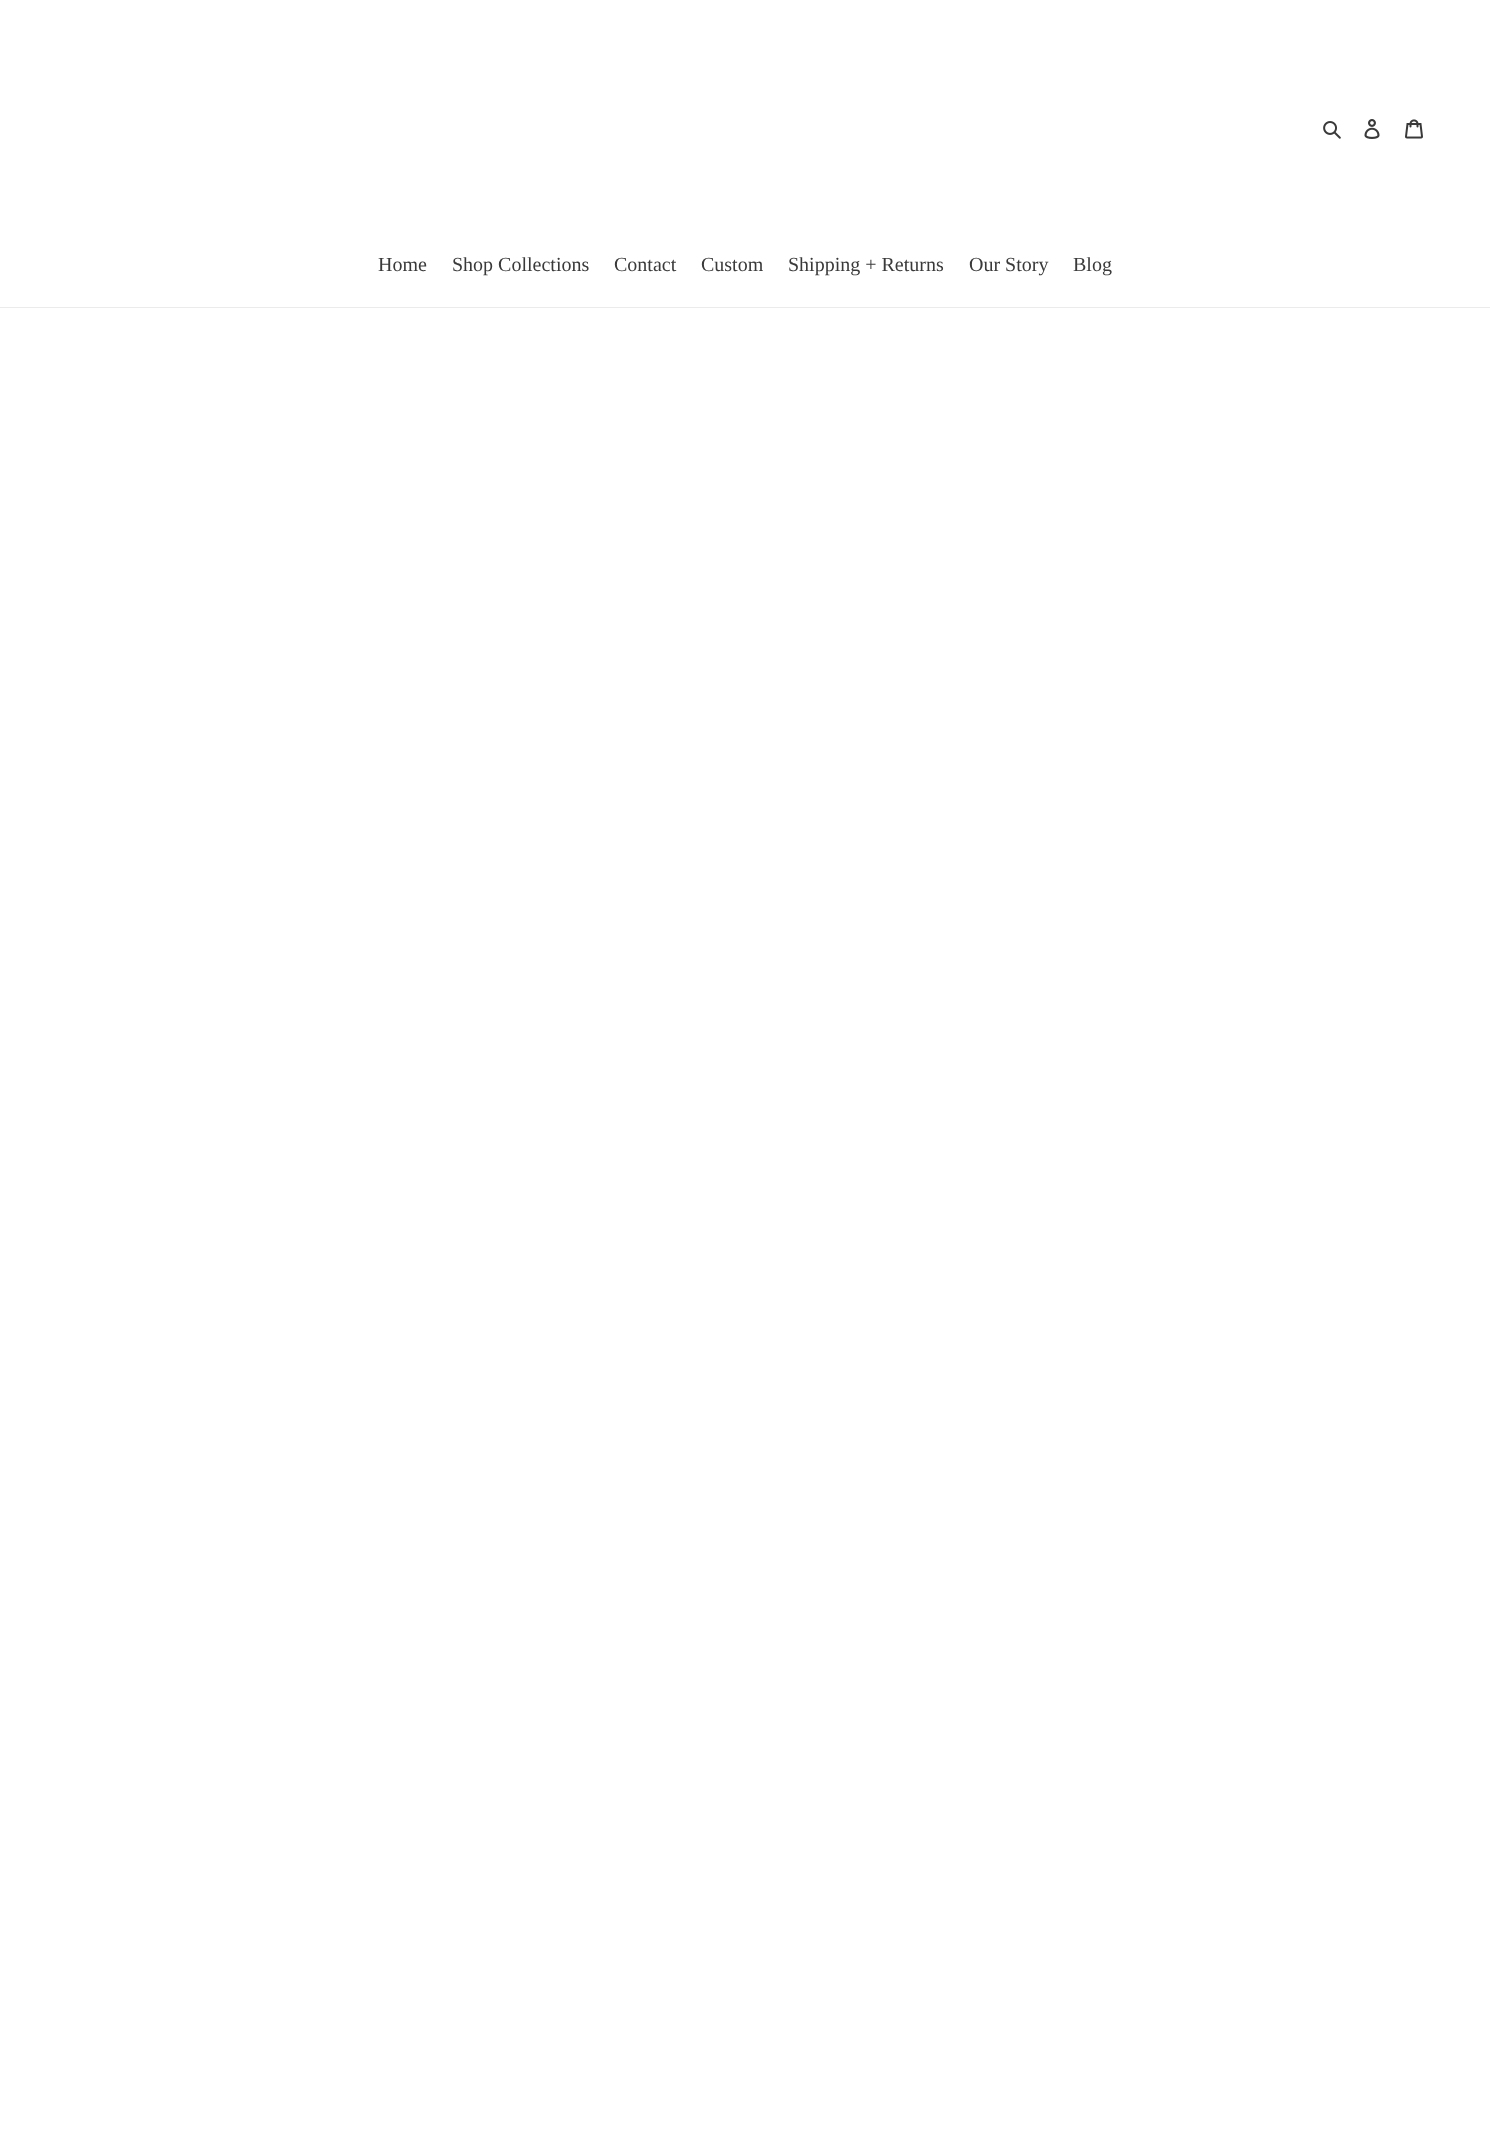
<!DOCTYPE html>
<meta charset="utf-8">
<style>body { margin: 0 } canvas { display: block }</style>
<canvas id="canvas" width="1490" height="2147"></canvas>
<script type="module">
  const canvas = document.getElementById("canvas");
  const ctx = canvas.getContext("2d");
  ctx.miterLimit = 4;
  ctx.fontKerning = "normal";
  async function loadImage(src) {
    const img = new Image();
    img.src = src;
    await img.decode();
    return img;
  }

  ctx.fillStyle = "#ffffff";
  ctx.fillRect(0, 0, 1490, 2147);
  ctx.drawImage(await loadImage("img1.png"), 1323, 121, 18, 18);
  ctx.drawImage(await loadImage("img2.png"), 1364, 119, 16, 20);
  ctx.drawImage(await loadImage("img3.png"), 1405, 119, 18, 20);
  ctx.fillStyle = "#ebebeb";
  ctx.fillRect(0, 307, 1490, 1);
  ctx.font = "20px Liberation Serif";
  ctx.fillStyle = "#3a3a3a";
  ctx.fillText("Home", 378, 271);
  ctx.fillText("Shop Collections", 452, 271);
  ctx.fillText("Contact", 614, 271);
  ctx.fillText("Custom", 701, 271);
  ctx.fillText("Shipping + Returns", 788, 271);
  ctx.fillText("Our Story", 969, 271);
  ctx.fillText("Blog", 1073, 271);
</script>
